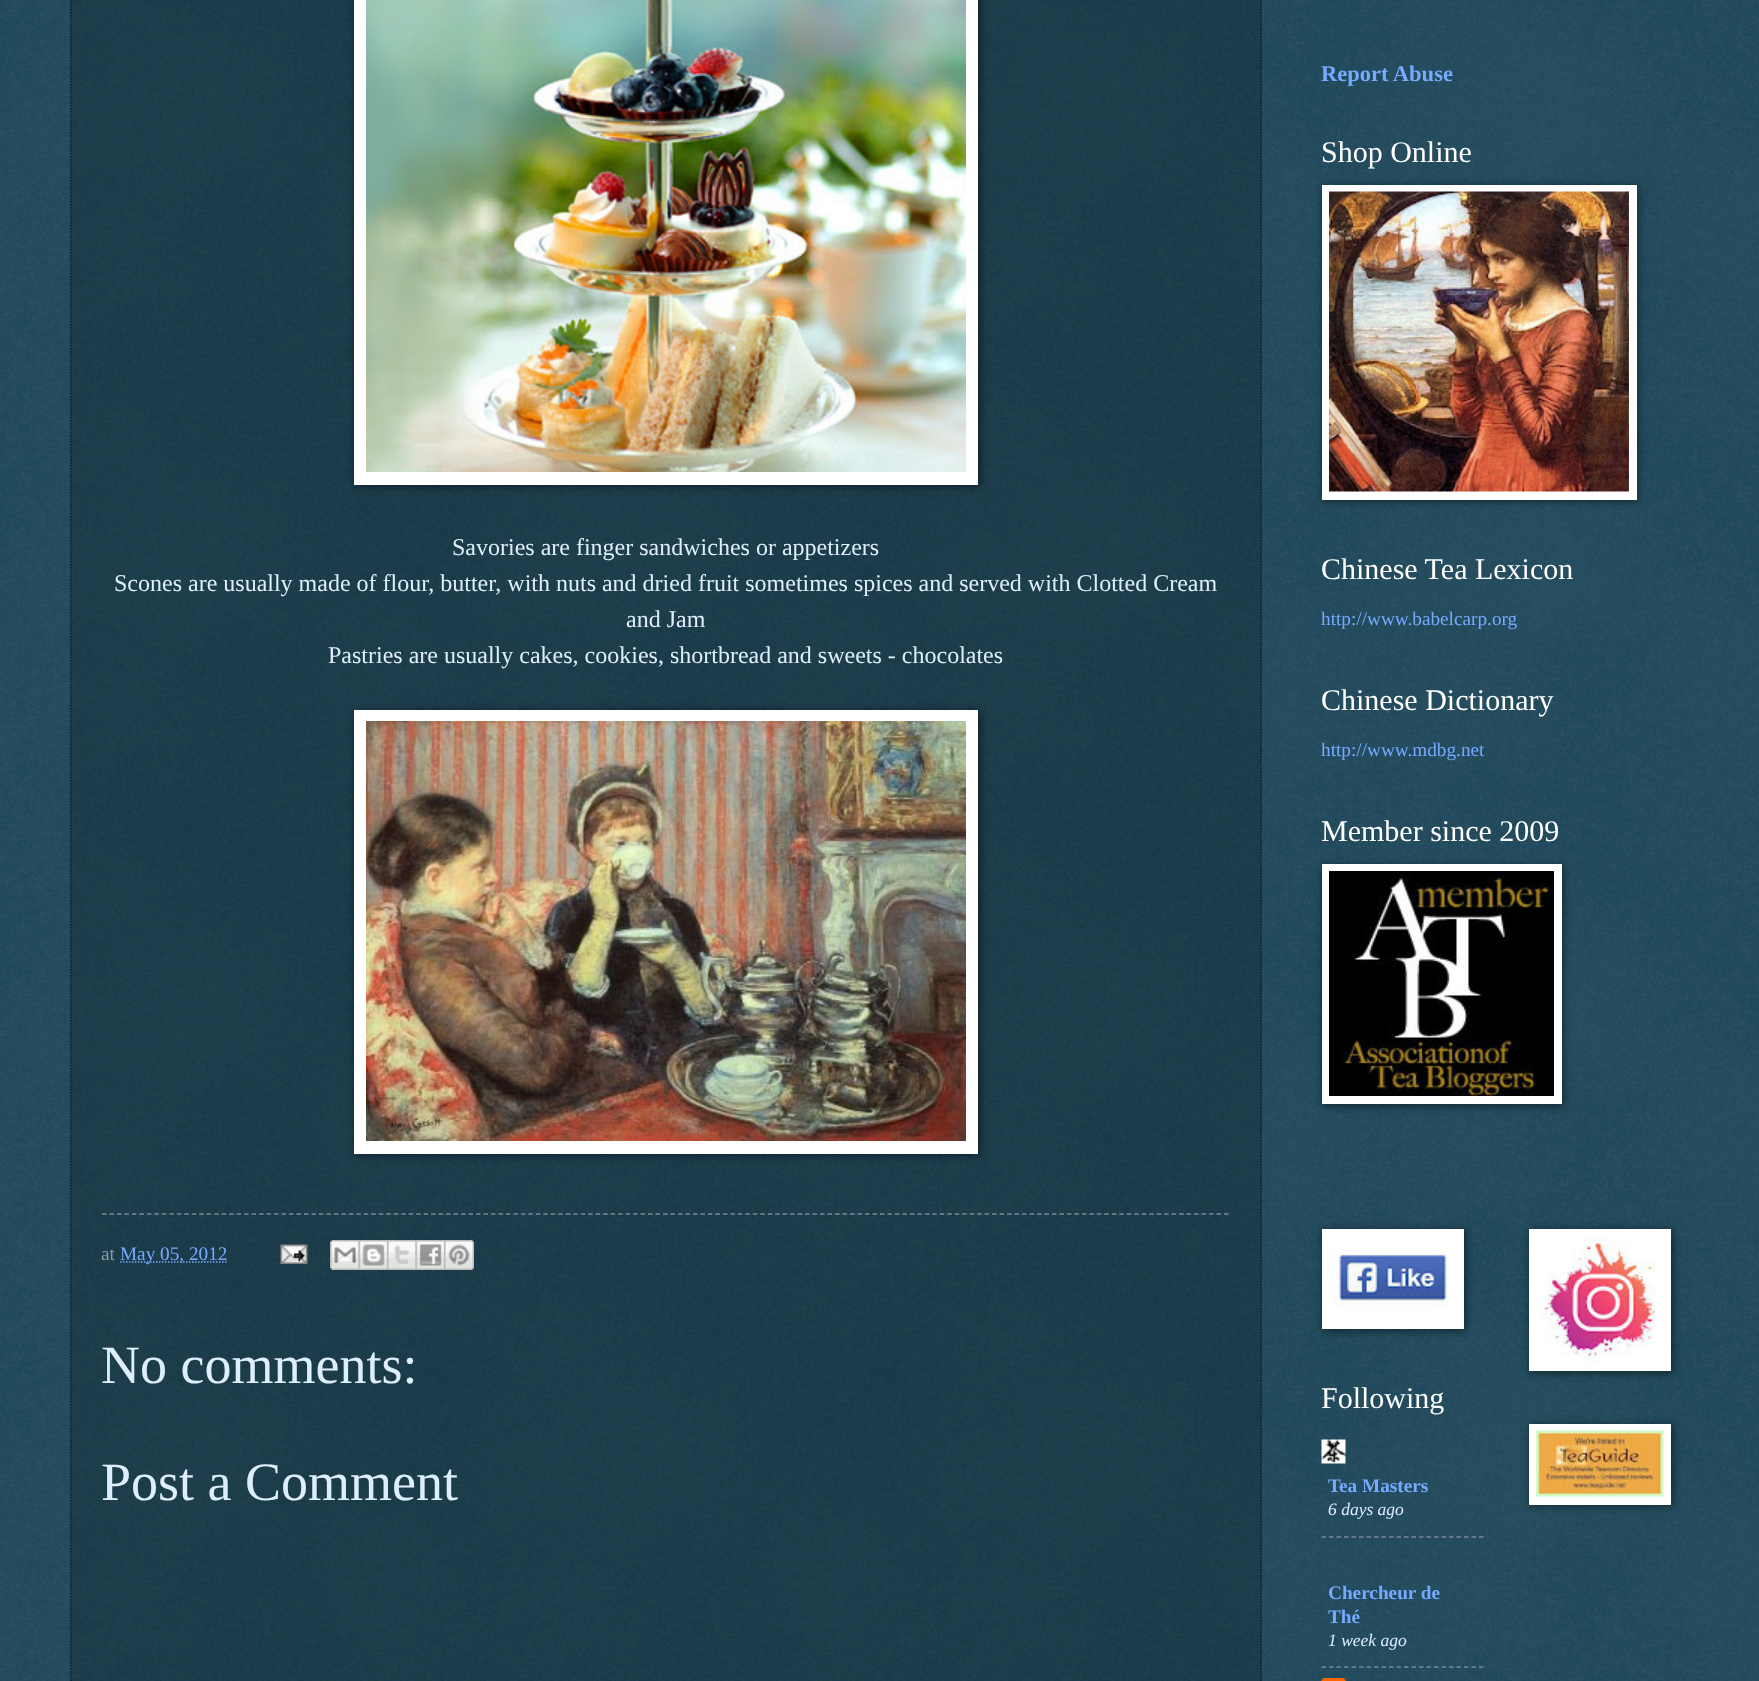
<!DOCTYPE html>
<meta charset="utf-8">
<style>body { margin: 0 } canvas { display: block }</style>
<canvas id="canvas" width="1759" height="1681"></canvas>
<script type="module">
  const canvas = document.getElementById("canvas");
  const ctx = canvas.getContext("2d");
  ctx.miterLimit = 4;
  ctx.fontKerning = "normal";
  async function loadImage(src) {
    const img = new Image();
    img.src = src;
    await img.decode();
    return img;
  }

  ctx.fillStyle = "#002f44";
  ctx.fillRect(0, 0, 1759, 1681);
  ctx.drawImage(await loadImage("img1.png"), 0, 0, 1759, 1681);
  ctx.fillStyle = "rgba(0, 0, 0, 0.2)";
  ctx.fillRect(70, 0, 1192, 1681);
  ctx.beginPath();
  ctx.moveTo(1261, -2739);
  ctx.lineTo(1261, 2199);
  ctx.strokeStyle = "#112233";
  ctx.lineWidth = 1.5;
  ctx.setLineDash([1.5, 1.5]);
  ctx.stroke();
  ctx.beginPath();
  ctx.moveTo(71, -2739);
  ctx.lineTo(71, 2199);
  ctx.stroke();
  ctx.fillStyle = "rgba(0, 0, 0, 0.5)";
  ctx.filter = "blur(4px)";
  ctx.beginPath();
  ctx.rect(356, -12, 624, 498);
  ctx.fill();
  ctx.filter = "none";
  ctx.fillStyle = "#ffffff";
  ctx.fillRect(354, 0, 624, 485);
  ctx.drawImage(await loadImage("img2.png"), 366, 0, 600, 472);
  ctx.font = "24px Liberation Serif";
  ctx.fillStyle = "#ddeeff";
  ctx.fillText("Savories are finger sandwiches or appetizers", 452, 555);
  ctx.fillText("Scones are usually made of flour, butter, with nuts and dried fruit sometimes spices and served with Clotted Cream", 114, 591);
  ctx.fillText("and Jam", 626, 627);
  ctx.fillText("Pastries are usually cakes, cookies, shortbread and sweets - chocolates", 328, 663);
  ctx.fillStyle = "rgba(0, 0, 0, 0.5)";
  ctx.filter = "blur(4px)";
  ctx.beginPath();
  ctx.rect(356, 711, 624, 444);
  ctx.fill();
  ctx.filter = "none";
  ctx.fillStyle = "#ffffff";
  ctx.fillRect(354, 710, 624, 444);
  ctx.drawImage(await loadImage("img3.png"), 366, 721, 600, 420);
  ctx.beginPath();
  ctx.moveTo(102, 1214);
  ctx.lineTo(1230, 1214);
  ctx.strokeStyle = "#778899";
  ctx.setLineDash([4.5, 2.98]);
  ctx.stroke();
  ctx.font = "19.25px Liberation Serif";
  ctx.fillStyle = "#8899aa";
  ctx.fillText("at", 101, 1260);
  ctx.beginPath();
  ctx.moveTo(120, 1262);
  ctx.lineTo(228, 1262);
  ctx.strokeStyle = "#77aaff";
  ctx.setLineDash([1.5, 1.5]);
  ctx.stroke();
  ctx.fillStyle = "#77aaff";
  ctx.fillText("May 05, 2012", 120, 1260);
  ctx.drawImage(await loadImage("img4.png"), 280, 1244, 28, 20);
  ctx.drawImage(await loadImage("img5.png"), 330, 1240, 29, 30);
  ctx.drawImage(await loadImage("img6.png"), 358, 1240, 29, 30);
  ctx.drawImage(await loadImage("img7.png"), 387, 1240, 29, 30);
  ctx.drawImage(await loadImage("img8.png"), 415, 1240, 29, 30);
  ctx.drawImage(await loadImage("img9.png"), 444, 1240, 30, 30);
  ctx.font = "54px Liberation Serif";
  ctx.fillStyle = "#ddeeff";
  ctx.fillText("No comments:", 101, 1383);
  ctx.fillText("Post a Comment", 101, 1500);
  ctx.font = "bold 22.5px Liberation Serif";
  ctx.fillStyle = "#77aaff";
  ctx.fillText("Report Abuse", 1321, 81);
  ctx.font = "30px Liberation Serif";
  ctx.fillStyle = "#ffffff";
  ctx.fillText("Shop Online", 1321, 162);
  ctx.fillStyle = "rgba(0, 0, 0, 0.5)";
  ctx.filter = "blur(4px)";
  ctx.beginPath();
  ctx.rect(1323, 186, 315, 315);
  ctx.fill();
  ctx.filter = "none";
  ctx.fillStyle = "#ffffff";
  ctx.fillRect(1322, 185, 315, 315);
  ctx.drawImage(await loadImage("img10.png"), 1329, 191, 300, 301);
  ctx.fillText("Chinese Tea Lexicon", 1321, 579);
  ctx.font = "19.25px Liberation Serif";
  ctx.fillStyle = "#77aaff";
  ctx.fillText("http://www.babelcarp.org", 1321, 625);
  ctx.font = "30px Liberation Serif";
  ctx.fillStyle = "#ffffff";
  ctx.fillText("Chinese Dictionary", 1321, 710);
  ctx.font = "19.25px Liberation Serif";
  ctx.fillStyle = "#77aaff";
  ctx.fillText("http://www.mdbg.net", 1321, 756);
  ctx.font = "30px Liberation Serif";
  ctx.fillStyle = "#ffffff";
  ctx.fillText("Member since 2009", 1321, 841);
  ctx.fillStyle = "rgba(0, 0, 0, 0.5)";
  ctx.filter = "blur(4px)";
  ctx.beginPath();
  ctx.rect(1323, 866, 240, 240);
  ctx.fill();
  ctx.filter = "none";
  ctx.fillStyle = "#ffffff";
  ctx.fillRect(1322, 864, 240, 240);
  ctx.drawImage(await loadImage("img11.png"), 1329, 871, 225, 225);
  ctx.fillStyle = "rgba(0, 0, 0, 0.5)";
  ctx.filter = "blur(4px)";
  ctx.beginPath();
  ctx.rect(1323, 1230, 143, 101);
  ctx.fill();
  ctx.filter = "none";
  ctx.fillStyle = "#ffffff";
  ctx.fillRect(1322, 1229, 142, 100);
  ctx.drawImage(await loadImage("img12.png"), 1329, 1247, 120, 61);
  ctx.fillText("Following", 1321, 1408);
  ctx.drawImage(await loadImage("img13.png"), 1321, 1439, 25, 25);
  ctx.font = "bold 19.25px Liberation Serif";
  ctx.fillStyle = "#77aaff";
  ctx.fillText("Tea Masters", 1328, 1492);
  ctx.font = "italic 17.5px Liberation Serif";
  ctx.fillStyle = "#ddeeff";
  ctx.fillText("6 days ago", 1328, 1515);
  ctx.beginPath();
  ctx.moveTo(1321.5, 1537);
  ctx.lineTo(1483.5, 1537);
  ctx.strokeStyle = "#778899";
  ctx.setLineDash([4.5, 3]);
  ctx.stroke();
  ctx.font = "bold 19.25px Liberation Serif";
  ctx.fillStyle = "#77aaff";
  ctx.fillText("Chercheur de", 1328, 1599);
  ctx.fillText("Thé", 1328, 1623);
  ctx.font = "italic 17.5px Liberation Serif";
  ctx.fillStyle = "#ddeeff";
  ctx.fillText("1 week ago", 1328, 1646);
  ctx.beginPath();
  ctx.moveTo(1321.5, 1667);
  ctx.lineTo(1483.5, 1667);
  ctx.stroke();
  ctx.drawImage(await loadImage("img14.png"), 1321, 1678, 25, 3);
  ctx.fillStyle = "rgba(0, 0, 0, 0.5)";
  ctx.filter = "blur(4px)";
  ctx.beginPath();
  ctx.rect(1530, 1230, 143, 143);
  ctx.fill();
  ctx.filter = "none";
  ctx.fillStyle = "#ffffff";
  ctx.fillRect(1529, 1229, 142, 142);
  ctx.drawImage(await loadImage("img15.png"), 1539, 1235, 117, 128);
  ctx.fillStyle = "rgba(0, 0, 0, 0.5)";
  ctx.filter = "blur(4px)";
  ctx.beginPath();
  ctx.rect(1530, 1425, 143, 81);
  ctx.fill();
  ctx.filter = "none";
  ctx.fillStyle = "#ffffff";
  ctx.fillRect(1529, 1424, 142, 81);
  ctx.drawImage(await loadImage("img16.png"), 1536, 1430, 128, 67);
</script>
